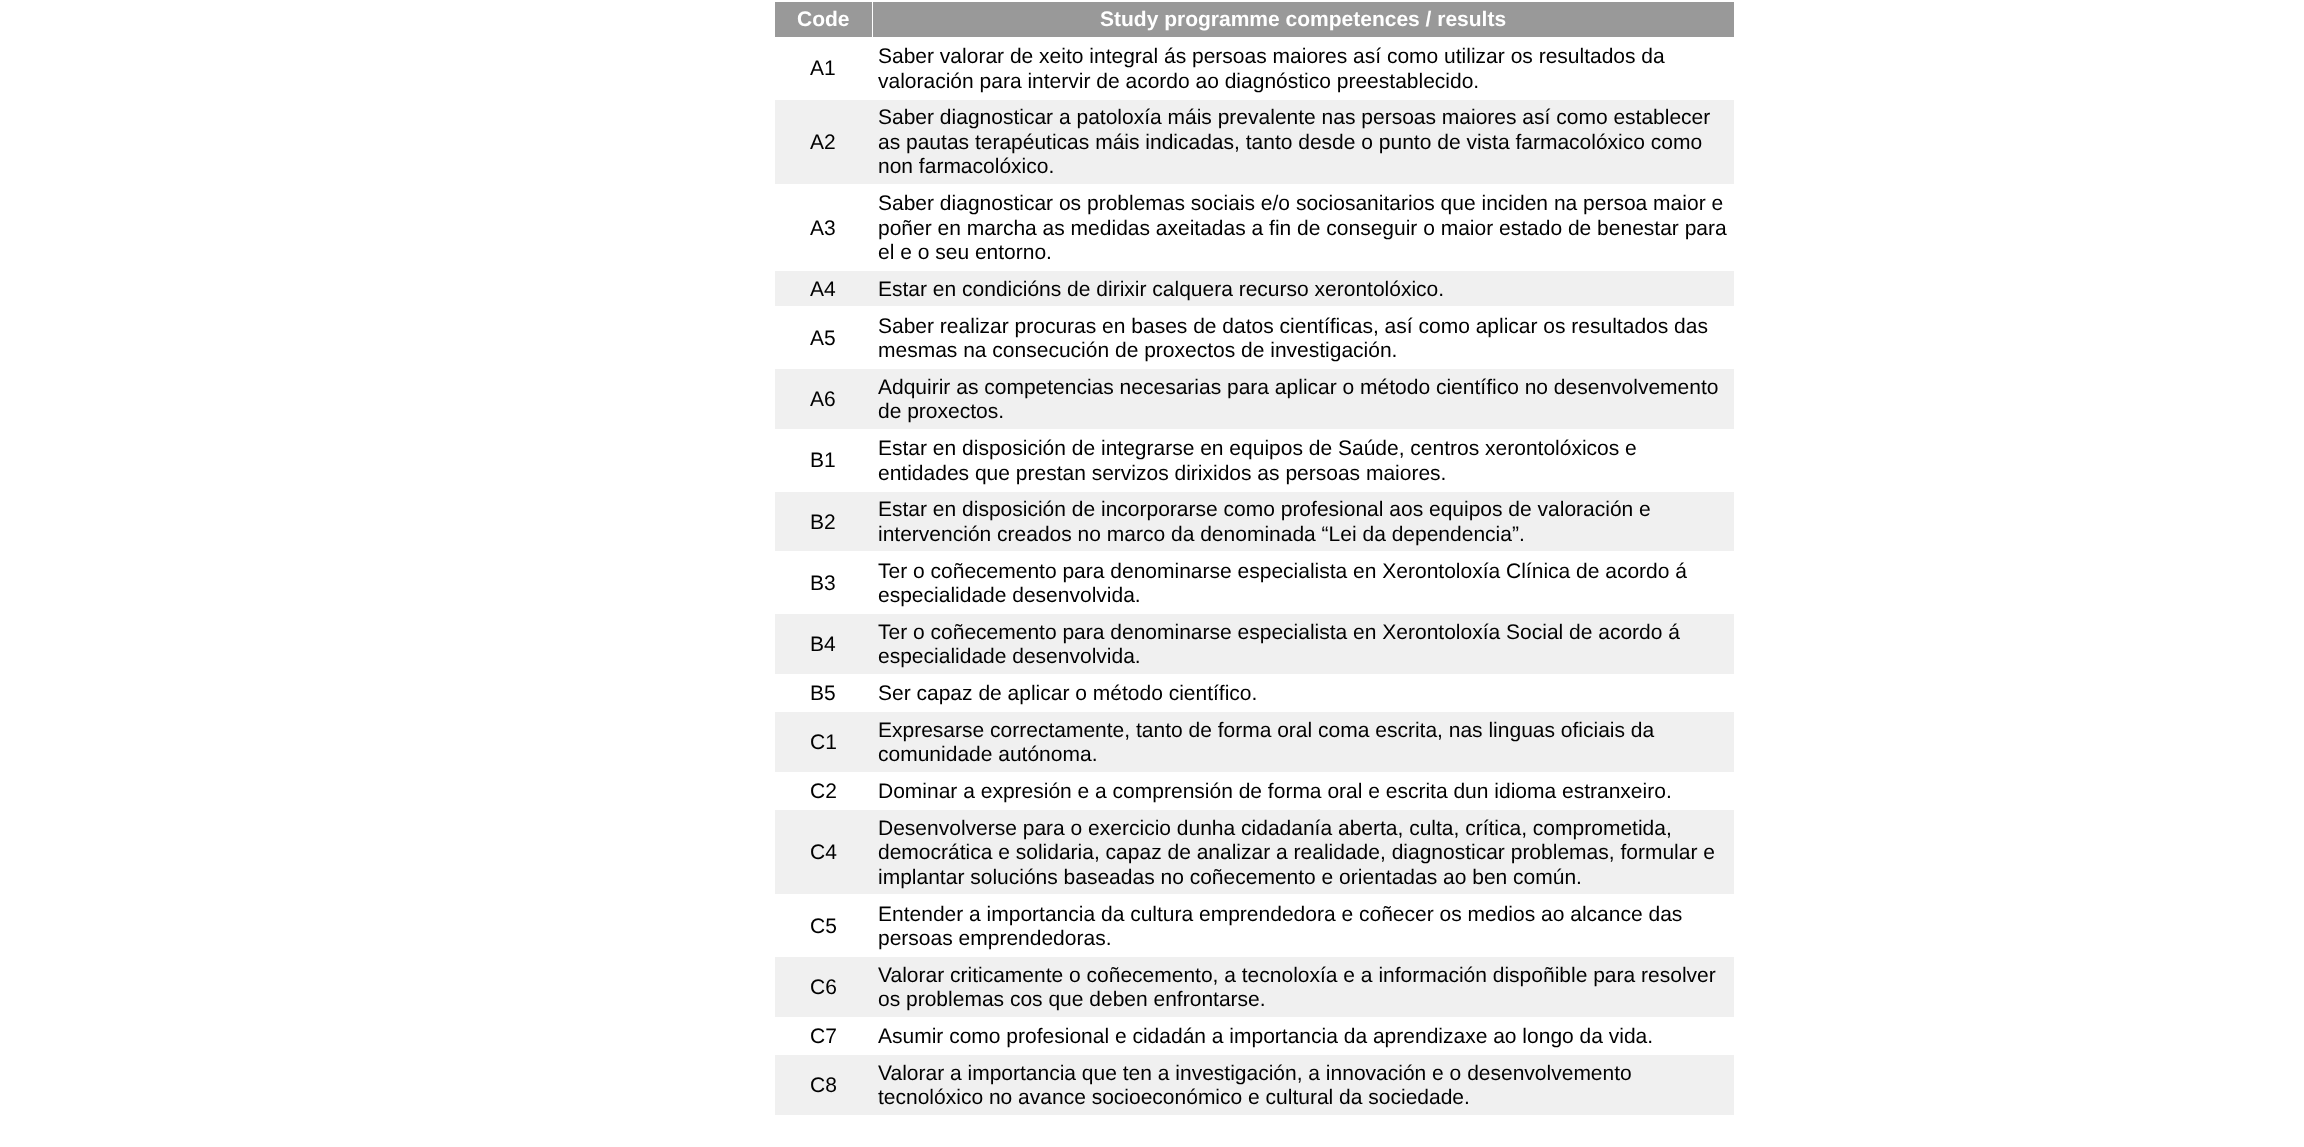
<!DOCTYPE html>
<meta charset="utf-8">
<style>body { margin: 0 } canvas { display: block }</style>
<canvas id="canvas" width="2304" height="1147"></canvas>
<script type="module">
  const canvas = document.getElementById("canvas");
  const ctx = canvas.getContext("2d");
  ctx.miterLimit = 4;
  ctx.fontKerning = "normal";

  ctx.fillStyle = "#ffffff";
  ctx.fillRect(0, 0, 2304, 1147);
  ctx.fillStyle = "#999999";
  ctx.fillRect(775, 2, 97, 35);
  ctx.font = "bold 21px Liberation Sans";
  ctx.fillStyle = "#ffffff";
  ctx.fillText("Code", 797, 26);
  ctx.fillStyle = "#999999";
  ctx.fillRect(873, 2, 861, 35);
  ctx.fillStyle = "#ffffff";
  ctx.fillText("Study programme competences / results", 1100, 26);
  ctx.font = "21px Liberation Sans";
  ctx.fillStyle = "#000000";
  ctx.fillText("A1", 810, 75);
  ctx.fillText("Saber valorar de xeito integral ás persoas maiores así como utilizar os resultados da", 878, 63);
  ctx.fillText("valoración para intervir de acordo ao diagnóstico preestablecido.", 878, 88);
  ctx.fillStyle = "#f0f0f0";
  ctx.fillRect(775, 100, 959, 84);
  ctx.fillStyle = "#000000";
  ctx.fillText("A2", 810, 149);
  ctx.fillText("Saber diagnosticar a patoloxía máis prevalente nas persoas maiores así como establecer", 878, 124);
  ctx.fillText("as pautas terapéuticas máis indicadas, tanto desde o punto de vista farmacolóxico como", 878, 149);
  ctx.fillText("non farmacolóxico.", 878, 173);
  ctx.fillText("A3", 810, 235);
  ctx.fillText("Saber diagnosticar os problemas sociais e/o sociosanitarios que inciden na persoa maior e", 878, 210);
  ctx.fillText("poñer en marcha as medidas axeitadas a fin de conseguir o maior estado de benestar para", 878, 235);
  ctx.fillText("el e o seu entorno.", 878, 259);
  ctx.fillStyle = "#f0f0f0";
  ctx.fillRect(775, 271, 959, 35);
  ctx.fillStyle = "#000000";
  ctx.fillText("A4", 810, 296);
  ctx.fillText("Estar en condicións de dirixir calquera recurso xerontolóxico.", 878, 296);
  ctx.fillText("A5", 810, 345);
  ctx.fillText("Saber realizar procuras en bases de datos científicas, así como aplicar os resultados das", 878, 333);
  ctx.fillText("mesmas na consecución de proxectos de investigación.", 878, 357);
  ctx.fillStyle = "#f0f0f0";
  ctx.fillRect(775, 369, 959, 60);
  ctx.fillStyle = "#000000";
  ctx.fillText("A6", 810, 406);
  ctx.fillText("Adquirir as competencias necesarias para aplicar o método científico no desenvolvemento", 878, 394);
  ctx.fillText("de proxectos.", 878, 418);
  ctx.fillText("B1", 810, 467);
  ctx.fillText("Estar en disposición de integrarse en equipos de Saúde, centros xerontolóxicos e", 878, 455);
  ctx.fillText("entidades que prestan servizos dirixidos as persoas maiores.", 878, 480);
  ctx.fillStyle = "#f0f0f0";
  ctx.fillRect(775, 492, 959, 59);
  ctx.fillStyle = "#000000";
  ctx.fillText("B2", 810, 529);
  ctx.fillText("Estar en disposición de incorporarse como profesional aos equipos de valoración e", 878, 516);
  ctx.fillText("intervención creados no marco da denominada “Lei da dependencia”.", 878, 541);
  ctx.fillText("B3", 810, 590);
  ctx.fillText("Ter o coñecemento para denominarse especialista en Xerontoloxía Clínica de acordo á", 878, 578);
  ctx.fillText("especialidade desenvolvida.", 878, 602);
  ctx.fillStyle = "#f0f0f0";
  ctx.fillRect(775, 614, 959, 60);
  ctx.fillStyle = "#000000";
  ctx.fillText("B4", 810, 651);
  ctx.fillText("Ter o coñecemento para denominarse especialista en Xerontoloxía Social de acordo á", 878, 639);
  ctx.fillText("especialidade desenvolvida.", 878, 663);
  ctx.fillText("B5", 810, 700);
  ctx.fillText("Ser capaz de aplicar o método científico.", 878, 700);
  ctx.fillStyle = "#f0f0f0";
  ctx.fillRect(775, 712, 959, 60);
  ctx.fillStyle = "#000000";
  ctx.fillText("C1", 810, 749);
  ctx.fillText("Expresarse correctamente, tanto de forma oral coma escrita, nas linguas oficiais da", 878, 737);
  ctx.fillText("comunidade autónoma.", 878, 761);
  ctx.fillText("C2", 810, 798);
  ctx.fillText("Dominar a expresión e a comprensión de forma oral e escrita dun idioma estranxeiro.", 878, 798);
  ctx.fillStyle = "#f0f0f0";
  ctx.fillRect(775, 810, 959, 84);
  ctx.fillStyle = "#000000";
  ctx.fillText("C4", 810, 859);
  ctx.fillText("Desenvolverse para o exercicio dunha cidadanía aberta, culta, crítica, comprometida,", 878, 835);
  ctx.fillText("democrática e solidaria, capaz de analizar a realidade, diagnosticar problemas, formular e", 878, 859);
  ctx.fillText("implantar solucións baseadas no coñecemento e orientadas ao ben común.", 878, 884);
  ctx.fillText("C5", 810, 933);
  ctx.fillText("Entender a importancia da cultura emprendedora e coñecer os medios ao alcance das", 878, 921);
  ctx.fillText("persoas emprendedoras.", 878, 945);
  ctx.fillStyle = "#f0f0f0";
  ctx.fillRect(775, 957, 959, 60);
  ctx.fillStyle = "#000000";
  ctx.fillText("C6", 810, 994);
  ctx.fillText("Valorar criticamente o coñecemento, a tecnoloxía e a información dispoñible para resolver", 878, 982);
  ctx.fillText("os problemas cos que deben enfrontarse.", 878, 1006);
  ctx.fillText("C7", 810, 1043);
  ctx.fillText("Asumir como profesional e cidadán a importancia da aprendizaxe ao longo da vida.", 878, 1043);
  ctx.fillStyle = "#f0f0f0";
  ctx.fillRect(775, 1055, 959, 60);
  ctx.fillStyle = "#000000";
  ctx.fillText("C8", 810, 1092);
  ctx.fillText("Valorar a importancia que ten a investigación, a innovación e o desenvolvemento", 878, 1080);
  ctx.fillText("tecnolóxico no avance socioeconómico e cultural da sociedade.", 878, 1104);
</script>
